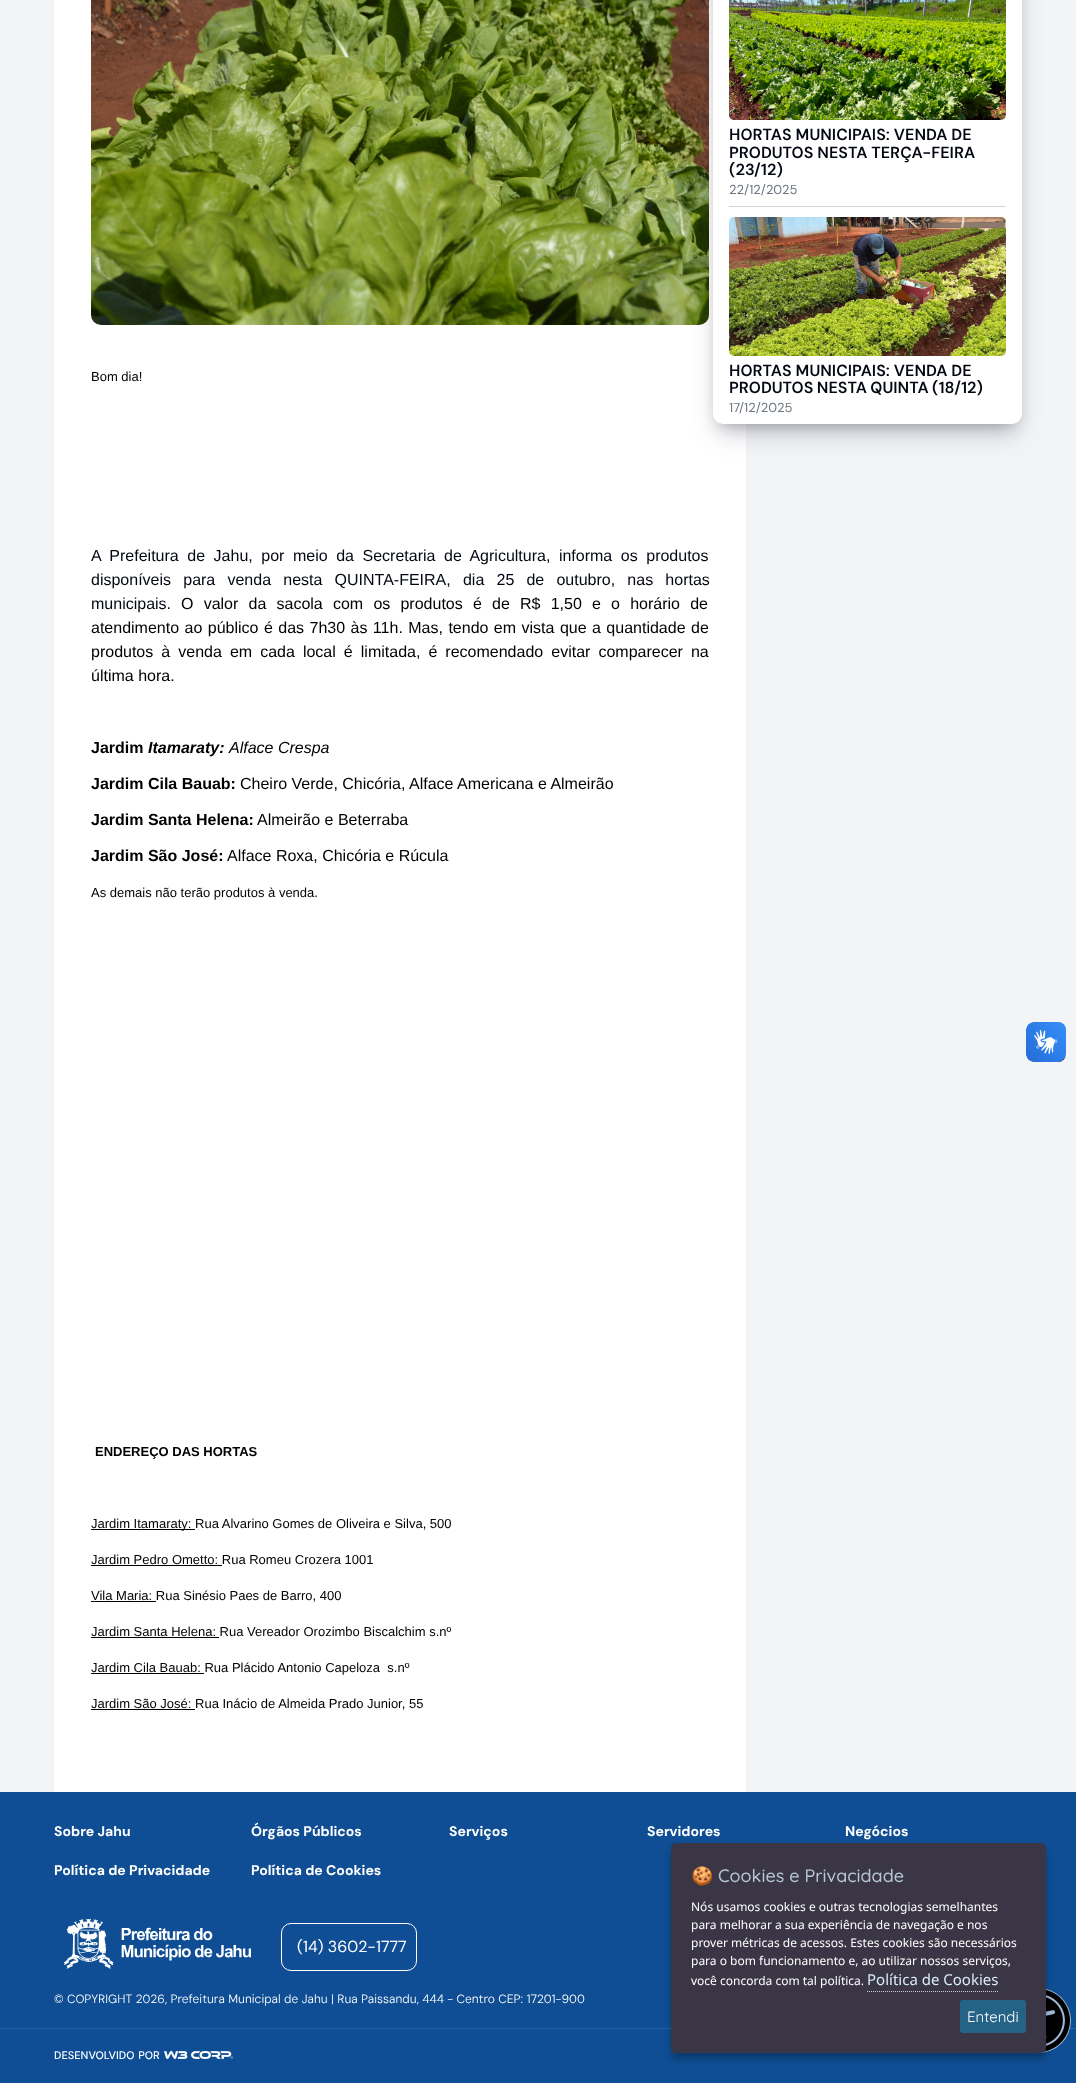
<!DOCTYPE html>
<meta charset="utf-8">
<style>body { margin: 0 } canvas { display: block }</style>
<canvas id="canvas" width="1076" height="2083"></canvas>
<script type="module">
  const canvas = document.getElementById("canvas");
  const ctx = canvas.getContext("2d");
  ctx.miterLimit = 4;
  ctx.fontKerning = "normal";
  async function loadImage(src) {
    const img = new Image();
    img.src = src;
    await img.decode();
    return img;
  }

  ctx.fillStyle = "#f3f4f6";
  ctx.fillRect(0, 0, 1076, 2083);
  ctx.fillStyle = "#ffffff";
  ctx.fillRect(54, 0, 692, 1792);
  ctx.drawImage(await loadImage("img3.png"), 91, 0, 618, 325);
  ctx.fillStyle = "rgba(0, 0, 0, 0.3)";
  ctx.filter = "blur(8px)";
  ctx.beginPath();
  ctx.roundRect(721, -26, 293, 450, 2);
  ctx.fill();
  ctx.filter = "none";
  ctx.fillStyle = "rgba(50, 50, 93, 0.25)";
  ctx.filter = "blur(13.5px)";
  ctx.beginPath();
  ctx.roundRect(718, -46, 299, 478, 5);
  ctx.fill();
  ctx.filter = "none";
  ctx.fillStyle = "#ffffff";
  ctx.beginPath();
  ctx.roundRect(713, -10, 309, 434, 10);
  ctx.fill();
  ctx.fillStyle = "#d1d5db";
  ctx.fillRect(729, 206, 277, 1);
  ctx.drawImage(await loadImage("img1.png"), 729, 0, 277, 120);
  ctx.font = "600 16px DM Sans";
  ctx.fillStyle = "#030712";
  ctx.fillText("HORTAS MUNICIPAIS: VENDA DE", 729, 140);
  ctx.fillText("PRODUTOS NESTA TERÇA-FEIRA", 729, 158);
  ctx.fillText("(23/12)", 729, 175);
  ctx.font = "13px 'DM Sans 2'";
  ctx.fillStyle = "#6f7782";
  ctx.fillText("22/12/2025", 729, 194);
  ctx.drawImage(await loadImage("img2.png"), 729, 217, 277, 139);
  ctx.font = "600 16px DM Sans";
  ctx.fillStyle = "#030712";
  ctx.fillText("HORTAS MUNICIPAIS: VENDA DE", 729, 376);
  ctx.wordSpacing = "-0.5px";
  ctx.fillText("PRODUTOS NESTA QUINTA (18/12)", 729, 393);
  ctx.wordSpacing = "0px";
  ctx.font = "13px 'DM Sans 2'";
  ctx.fillStyle = "#6f7782";
  ctx.fillText("17/12/2025", 729, 412);
  ctx.font = "13px Liberation Sans";
  ctx.fillStyle = "#000000";
  ctx.fillText("Bom dia!", 91, 381);
  ctx.wordSpacing = "4.1px";
  ctx.font = "16px Liberation Sans";
  ctx.fillStyle = "#030712";
  ctx.fillText("A Prefeitura de Jahu, por meio da Secretaria de Agricultura, informa os produtos", 91, 561);
  ctx.wordSpacing = "7.75px";
  ctx.fillText("disponíveis para venda nesta QUINTA-FEIRA, dia 25 de outubro, nas hortas", 91, 585);
  ctx.wordSpacing = "0px";
  ctx.fillText("municipais.", 91, 609);
  ctx.wordSpacing = "5.75px";
  ctx.fillStyle = "#000000";
  ctx.fillText("O valor da sacola com os produtos é de R$ 1,50 e o horário de", 181, 609);
  ctx.wordSpacing = "1px";
  ctx.fillText("atendimento ao público é das 7h30 às 11h. Mas, tendo em vista que a quantidade de", 91, 633);
  ctx.wordSpacing = "3.6px";
  ctx.fillText("produtos à venda em cada local é limitada, é recomendado evitar comparecer na", 91, 657);
  ctx.wordSpacing = "0px";
  ctx.fillText("última hora.", 91, 681);
  ctx.font = "bold 16px Liberation Sans";
  ctx.fillText("Jardim", 91, 753);
  ctx.font = "italic bold 16px Liberation Sans";
  ctx.fillText("Itamaraty:", 148, 753);
  ctx.font = "italic 16px Liberation Sans";
  ctx.fillText("Alface Crespa", 229, 753);
  ctx.font = "bold 16px Liberation Sans";
  ctx.fillText("Jardim Cila Bauab:", 91, 789);
  ctx.font = "16px Liberation Sans";
  ctx.fillText("Cheiro Verde, Chicória, Alface Americana e Almeirão", 240, 789);
  ctx.font = "bold 16px Liberation Sans";
  ctx.fillText("Jardim Santa Helena:", 91, 825);
  ctx.font = "16px Liberation Sans";
  ctx.fillText("Almeirão e Beterraba", 257, 825);
  ctx.font = "bold 16px Liberation Sans";
  ctx.fillText("Jardim São José:", 91, 861);
  ctx.font = "16px Liberation Sans";
  ctx.fillText("Alface Roxa, Chicória e Rúcula", 227, 861);
  ctx.font = "13px Liberation Sans";
  ctx.fillText("As demais não terão produtos à venda.", 91, 897);
  ctx.font = "bold 13px Liberation Sans";
  ctx.fillText("ENDEREÇO DAS HORTAS", 95, 1456);
  ctx.fillRect(91, 1529, 104, 1);
  ctx.font = "13px Liberation Sans";
  ctx.fillText("Jardim Itamaraty: Rua Alvarino Gomes de Oliveira e Silva, 500", 91, 1528);
  ctx.fillText("Jardim Pedro Ometto: Rua Romeu Crozera 1001", 91, 1564);
  ctx.fillRect(91, 1565, 131, 1);
  ctx.fillRect(91, 1601, 65, 1);
  ctx.fillText("Vila Maria: Rua Sinésio Paes de Barro, 400", 91, 1600);
  ctx.fillText("Jardim Santa Helena: Rua Vereador Orozimbo Biscalchim s.nº", 91, 1636);
  ctx.fillRect(91, 1637, 128, 1);
  ctx.fillRect(91, 1673, 113, 1);
  ctx.fillText("Jardim Cila Bauab: Rua Plácido Antonio Capeloza  s.nº", 91, 1672);
  ctx.fillRect(91, 1709, 104, 1);
  ctx.fillText("Jardim São José: Rua Inácio de Almeida Prado Junior, 55", 91, 1708);
  ctx.drawImage(await loadImage("img4.png"), 1026, 1022, 40, 40);
  ctx.drawImage(await loadImage("img5.png"), 1026, 1022, 40, 40);
  ctx.fillStyle = "#0f4e94";
  ctx.fillRect(0, 1792, 1076, 291);
  ctx.font = "bold 14px DM Sans";
  ctx.fillStyle = "#ffffff";
  ctx.fillText("Sobre Jahu", 54, 1836);
  ctx.fillText("Órgãos Públicos", 251, 1836);
  ctx.fillText("Serviços", 449, 1836);
  ctx.fillText("Servidores", 647, 1836);
  ctx.fillText("Negócios", 845, 1836);
  ctx.fillText("Política de Privacidade", 54, 1875);
  ctx.fillText("Política de Cookies", 251, 1875);
  ctx.drawImage(await loadImage("img6.png"), 64, 1919, 187, 50);
  ctx.beginPath();
  ctx.roundRect(281.5, 1923.5, 135, 47, 9.5);
  ctx.strokeStyle = "#ffffff";
  ctx.stroke();
  ctx.font = "16px DM Sans";
  ctx.fillText("(14) 3602-1777", 297, 1952);
  ctx.font = "300 12px DM Sans";
  ctx.fillText("© COPYRIGHT 2026, Prefeitura Municipal de Jahu | Rua Paissandu, 444 - Centro CEP: 17201-900", 54, 2003);
  ctx.fillStyle = "#27609f";
  ctx.fillRect(0, 2028, 1076, 1);
  ctx.wordSpacing = "1px";
  ctx.font = "500 11px DM Sans";
  ctx.fillStyle = "#ffffff";
  ctx.fillText("DESENVOLVIDO POR", 54, 2059);
  ctx.drawImage(await loadImage("img7.png"), 164, 2051, 69, 8);
  ctx.fillStyle = "rgba(255, 255, 255, 0.6)";
  ctx.beginPath();
  ctx.arc(1038.5, 2020.5, 32.5, 0, Math.PI * 2);
  ctx.fill();
  ctx.drawImage(await loadImage("img8.png"), 1044, 1990, 26, 62);
  ctx.fillStyle = "rgba(0, 0, 0, 0.25)";
  ctx.filter = "blur(3px)";
  ctx.beginPath();
  ctx.roundRect(671, 1849, 375, 210, 5);
  ctx.fill();
  ctx.filter = "none";
  ctx.fillStyle = "#3b3646";
  ctx.beginPath();
  ctx.roundRect(671, 1843, 375, 210, 5);
  ctx.fill();
  ctx.wordSpacing = "0px";
  ctx.font = "18px Noto Color Emoji";
  ctx.fillStyle = "#b7c8d5";
  ctx.fillText("🍪", 691, 1882);
  ctx.font = "500 18px Quicksand";
  ctx.fillText("Cookies e Privacidade", 718, 1882);
  ctx.font = "12px Noto Sans";
  ctx.fillStyle = "#ffffff";
  ctx.fillText("Nós usamos cookies e outras tecnologias semelhantes", 691, 1911);
  ctx.fillText("para melhorar a sua experiência de navegação e nos", 691, 1929);
  ctx.fillText("prover métricas de acessos. Estes cookies são necessários", 691, 1947);
  ctx.fillText("para o bom funcionamento e, ao utilizar nossos serviços,", 691, 1965);
  ctx.fillText("você concorda com tal política.", 691, 1985);
  ctx.font = "15px Noto Sans";
  ctx.fillStyle = "#d6ecf9";
  ctx.fillText("Política de Cookies", 867, 1985);
  ctx.beginPath();
  ctx.moveTo(867, 1991.5);
  ctx.lineTo(999, 1991.5);
  ctx.strokeStyle = "#cecdd1";
  ctx.setLineDash([1, 1]);
  ctx.stroke();
  ctx.fillStyle = "#256386";
  ctx.beginPath();
  ctx.roundRect(960, 2000, 66, 33, 3);
  ctx.fill();
  ctx.font = "15px Quicksand";
  ctx.fillStyle = "#ffffff";
  ctx.fillText("Entendi", 967, 2022);
</script>
